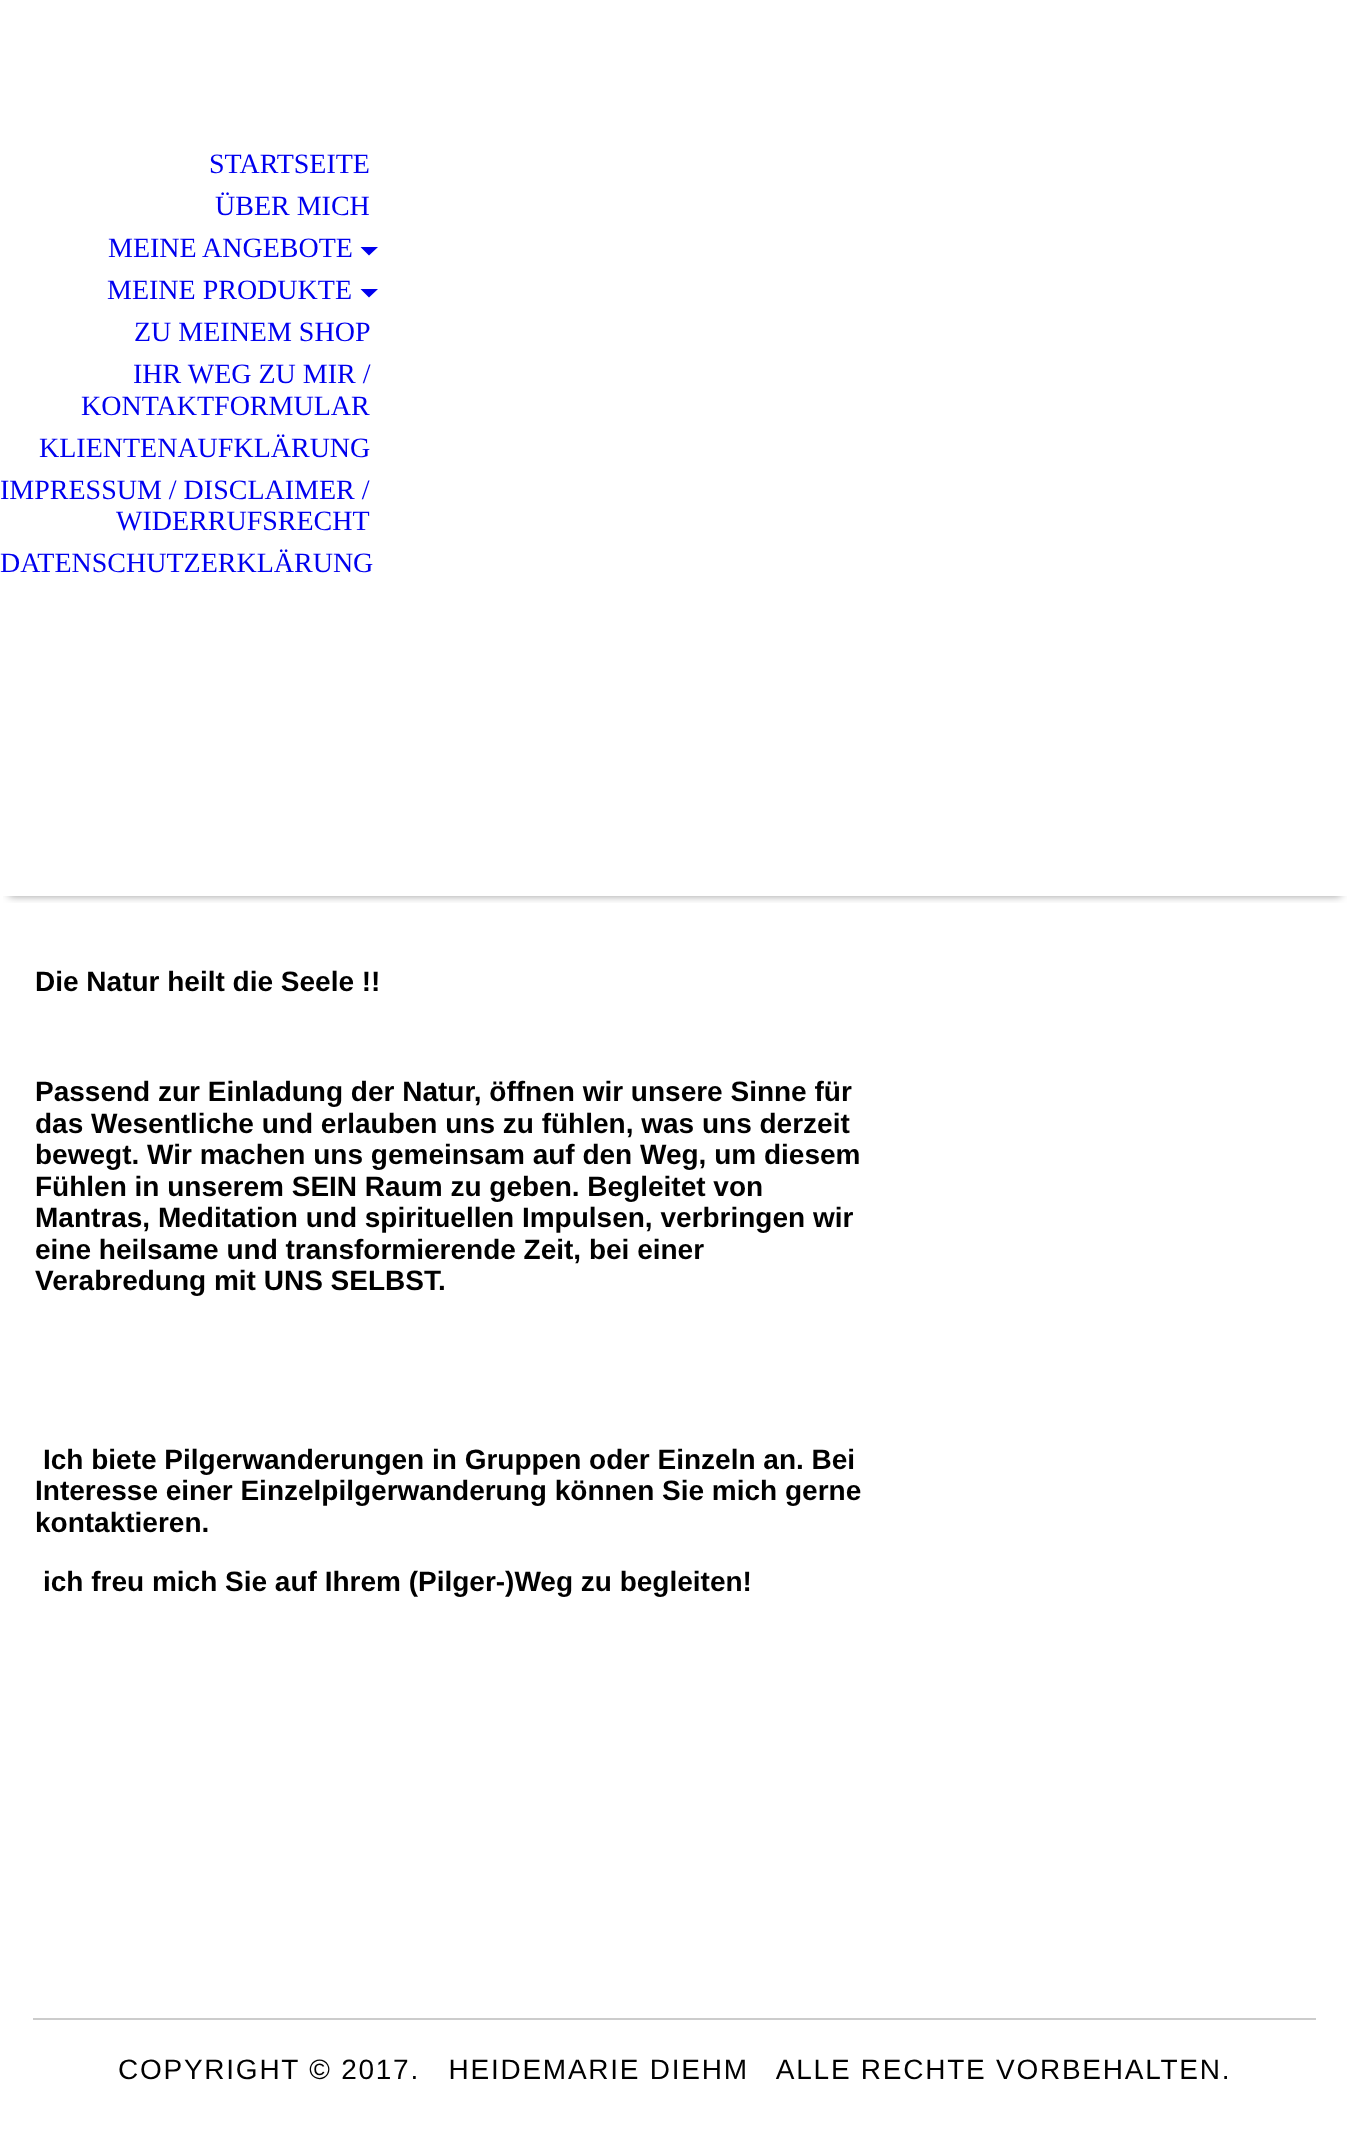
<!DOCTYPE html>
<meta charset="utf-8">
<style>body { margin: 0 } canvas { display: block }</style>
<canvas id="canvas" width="1349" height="2135"></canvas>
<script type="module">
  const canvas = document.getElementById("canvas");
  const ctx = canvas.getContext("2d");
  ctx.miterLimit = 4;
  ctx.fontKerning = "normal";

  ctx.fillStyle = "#ffffff";
  ctx.fillRect(0, 0, 1349, 2135);
  ctx.save();
  ctx.beginPath();
  ctx.rect(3, 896, 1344, 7);
  ctx.clip();
  ctx.fillStyle = "rgba(0, 0, 0, 0.4)";
  ctx.filter = "blur(4.5px)";
  ctx.beginPath();
  ctx.rect(9, 126, 1332, 770);
  ctx.fill();
  ctx.filter = "none";
  ctx.restore();
  ctx.font = "28px Liberation Serif";
  ctx.fillStyle = "#0000ee";
  ctx.fillText("STARTSEITE", 209, 173);
  ctx.fillText("ÜBER MICH", 215, 215);
  ctx.fillText("MEINE ANGEBOTE", 108, 257);
  ctx.beginPath();
  ctx.moveTo(360.5, 247);
  ctx.lineTo(378, 247);
  ctx.lineTo(369, 255.5);
  ctx.closePath();
  ctx.moveTo(360.5, 289);
  ctx.lineTo(378, 289);
  ctx.lineTo(369, 297.5);
  ctx.closePath();
  ctx.fill();
  ctx.fillText("MEINE PRODUKTE", 107, 299);
  ctx.fillText("ZU MEINEM SHOP", 134, 341);
  ctx.fillText("IHR WEG ZU MIR /", 133, 383);
  ctx.fillText("KONTAKTFORMULAR", 81, 415);
  ctx.fillText("KLIENTENAUFKLÄRUNG", 39, 457);
  ctx.fillText("IMPRESSUM / DISCLAIMER /", 0, 499);
  ctx.fillText("WIDERRUFSRECHT", 116, 530);
  ctx.fillText("DATENSCHUTZERKLÄRUNG", 0, 572);
  ctx.font = "bold 28px Liberation Sans";
  ctx.fillStyle = "#000000";
  ctx.fillText("Die Natur heilt die Seele !!", 35, 991);
  ctx.fillText("Passend zur Einladung der Natur, öffnen wir unsere Sinne für", 35, 1101);
  ctx.fillText("das Wesentliche und erlauben uns zu fühlen, was uns derzeit", 35, 1133);
  ctx.fillText("bewegt. Wir machen uns gemeinsam auf den Weg, um diesem", 35, 1164);
  ctx.fillText("Fühlen in unserem SEIN Raum zu geben. Begleitet von", 35, 1196);
  ctx.fillText("Mantras, Meditation und spirituellen Impulsen, verbringen wir", 35, 1227);
  ctx.fillText("eine heilsame und transformierende Zeit, bei einer", 35, 1259);
  ctx.fillText("Verabredung mit UNS SELBST.", 35, 1290);
  ctx.fillText("Ich biete Pilgerwanderungen in Gruppen oder Einzeln an. Bei", 43, 1469);
  ctx.fillText("Interesse einer Einzelpilgerwanderung können Sie mich gerne", 35, 1500);
  ctx.fillText("kontaktieren.", 35, 1532);
  ctx.fillText("ich freu mich Sie auf Ihrem (Pilger-)Weg zu begleiten!", 43, 1591);
  ctx.fillStyle = "#cccccc";
  ctx.fillRect(33, 2018, 1283, 2);
  ctx.letterSpacing = "1.75px";
  ctx.font = "28px Liberation Sans";
  ctx.fillStyle = "#000000";
  ctx.fillText("COPYRIGHT © 2017.   HEIDEMARIE DIEHM   ALLE RECHTE VORBEHALTEN.", 118, 2079);
</script>
